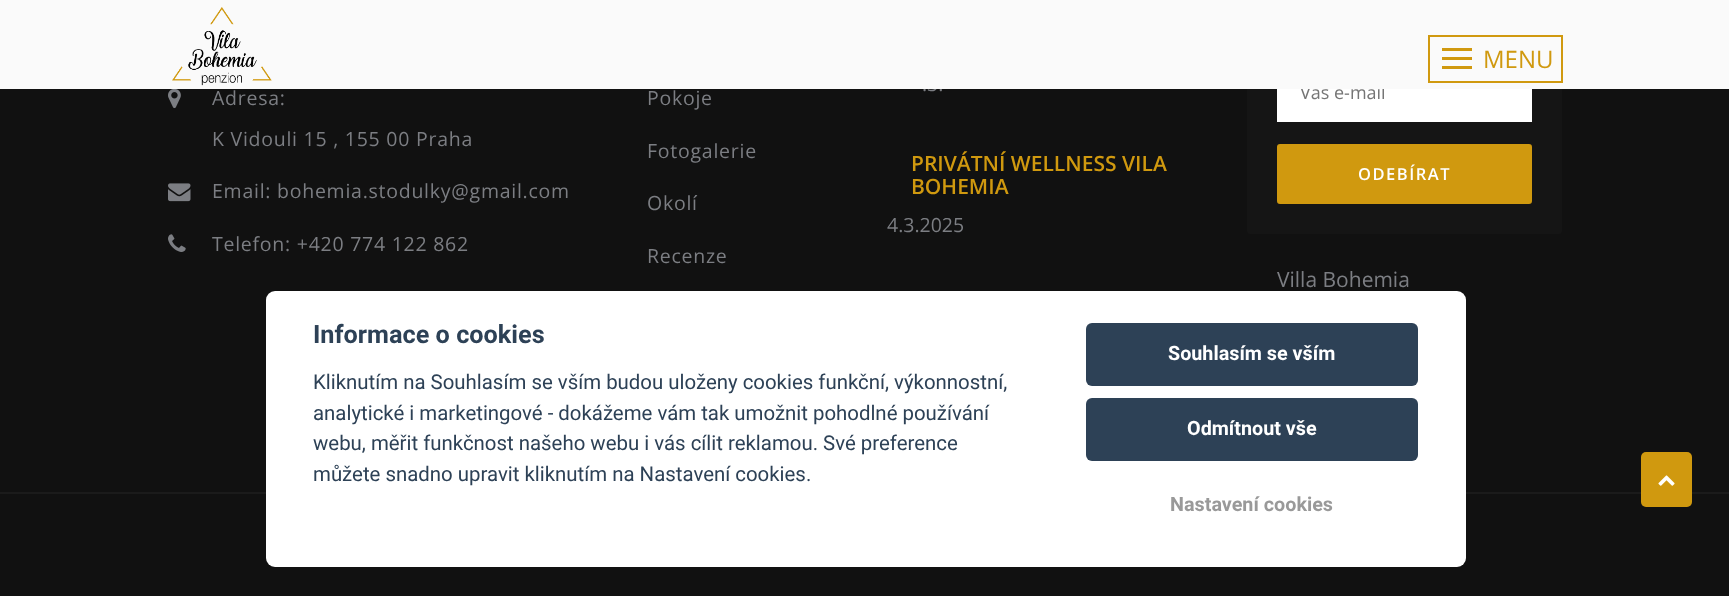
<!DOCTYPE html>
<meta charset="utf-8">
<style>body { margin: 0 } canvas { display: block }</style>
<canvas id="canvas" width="1729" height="596"></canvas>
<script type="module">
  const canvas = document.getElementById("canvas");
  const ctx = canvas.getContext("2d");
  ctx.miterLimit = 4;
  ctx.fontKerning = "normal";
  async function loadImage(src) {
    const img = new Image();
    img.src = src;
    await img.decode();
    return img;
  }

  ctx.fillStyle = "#111111";
  ctx.fillRect(0, 0, 1729, 596);
  ctx.font = "19.5px Open Sans";
  ctx.fillStyle = "#7c7e83";
  ctx.fillText(".3.", 922, 91);
  ctx.fillStyle = "#151515";
  ctx.beginPath();
  ctx.roundRect(1247, 33, 315, 201, 3);
  ctx.fill();
  ctx.fillStyle = "#ffffff";
  ctx.fillRect(1277, 89, 255, 33);
  ctx.font = "18px Open Sans";
  ctx.fillStyle = "#757575";
  ctx.fillText("Váš e-mail", 1300, 99);
  ctx.fillStyle = "#fafafa";
  ctx.fillRect(0, 0, 1729, 89);
  ctx.drawImage(await loadImage("img1.png"), 172, 7, 100, 79);
  ctx.strokeStyle = "#d0990f";
  ctx.lineWidth = 2;
  ctx.strokeRect(1429, 36, 133, 46);
  ctx.fillStyle = "#d0990f";
  ctx.fillRect(1442, 57, 30, 3);
  ctx.fillRect(1442, 48, 30, 3);
  ctx.fillRect(1442, 66, 30, 3);
  ctx.font = "24px Open Sans";
  ctx.fillText("MENU", 1483, 68);
  ctx.drawImage(await loadImage("img2.png"), 168, 89, 13, 20);
  ctx.letterSpacing = "0.75px";
  ctx.font = "19.5px Open Sans";
  ctx.fillStyle = "#7c7e83";
  ctx.fillText("Adresa:", 212, 105);
  ctx.fillText("K Vidouli 15 , 155 00 Praha", 212, 146);
  ctx.drawImage(await loadImage("img3.png"), 168, 183, 23, 19);
  ctx.fillText("Email: bohemia.stodulky@gmail.com", 212, 198);
  ctx.drawImage(await loadImage("img4.png"), 168, 234, 18, 18);
  ctx.fillText("Telefon: +420 774 122 862", 212, 251);
  ctx.fillText("Pokoje", 647, 105);
  ctx.fillText("Fotogalerie", 647, 158);
  ctx.fillText("Okolí", 647, 210);
  ctx.fillText("Recenze", 647, 263);
  ctx.letterSpacing = "0px";
  ctx.font = "600 21px Open Sans";
  ctx.fillStyle = "#d0990f";
  ctx.fillText("PRIVÁTNÍ WELLNESS VILA", 911, 171);
  ctx.fillText("BOHEMIA", 911, 194);
  ctx.font = "19.5px Open Sans";
  ctx.fillStyle = "#7c7e83";
  ctx.fillText("4.3.2025", 887, 232);
  ctx.fillStyle = "#d0990f";
  ctx.beginPath();
  ctx.roundRect(1278.5, 145.5, 252, 57, 1.5);
  ctx.fill();
  ctx.lineWidth = 3;
  ctx.stroke();
  ctx.letterSpacing = "1.5px";
  ctx.font = "600 16.5px Open Sans";
  ctx.fillStyle = "#ffffff";
  ctx.fillText("ODEBÍRAT", 1358, 180);
  ctx.letterSpacing = "0px";
  ctx.font = "21px Open Sans";
  ctx.fillStyle = "#7c7e83";
  ctx.fillText("Villa Bohemia", 1277, 287);
  ctx.fillStyle = "#1b1b1b";
  ctx.fillRect(0, 492, 1729, 2);
  ctx.fillStyle = "#ffffff";
  ctx.beginPath();
  ctx.roundRect(266, 291, 1200, 276, 9);
  ctx.fill();
  ctx.font = "bold 25.25px Roboto";
  ctx.fillStyle = "#2d4156";
  ctx.fillText("Informace o cookies", 313, 343);
  ctx.font = "20.4px Roboto";
  ctx.fillText("Kliknutím na Souhlasím se vším budou uloženy cookies funkční, výkonnostní,", 313, 389);
  ctx.fillText("analytické i marketingové - dokážeme vám tak umožnit pohodlné používání", 313, 420);
  ctx.fillText("webu, měřit funkčnost našeho webu i vás cílit reklamou. Své preference", 313, 450);
  ctx.fillText("můžete snadno upravit kliknutím na Nastavení cookies.", 313, 481);
  ctx.beginPath();
  ctx.roundRect(1086, 323, 332, 63, 6);
  ctx.fill();
  ctx.font = "bold 19.75px Roboto";
  ctx.fillStyle = "#ffffff";
  ctx.fillText("Souhlasím se vším", 1168, 360);
  ctx.fillStyle = "#2d4156";
  ctx.beginPath();
  ctx.roundRect(1086, 398, 332, 63, 6);
  ctx.fill();
  ctx.fillStyle = "#ffffff";
  ctx.fillText("Odmítnout vše", 1187, 435);
  ctx.fillStyle = "#999999";
  ctx.fillText("Nastavení cookies", 1170, 511);
  ctx.fillStyle = "#d0990f";
  ctx.beginPath();
  ctx.roundRect(1641, 452, 51, 55, 5);
  ctx.fill();
  ctx.drawImage(await loadImage("img5.png"), 1658, 475, 17, 11);
</script>
